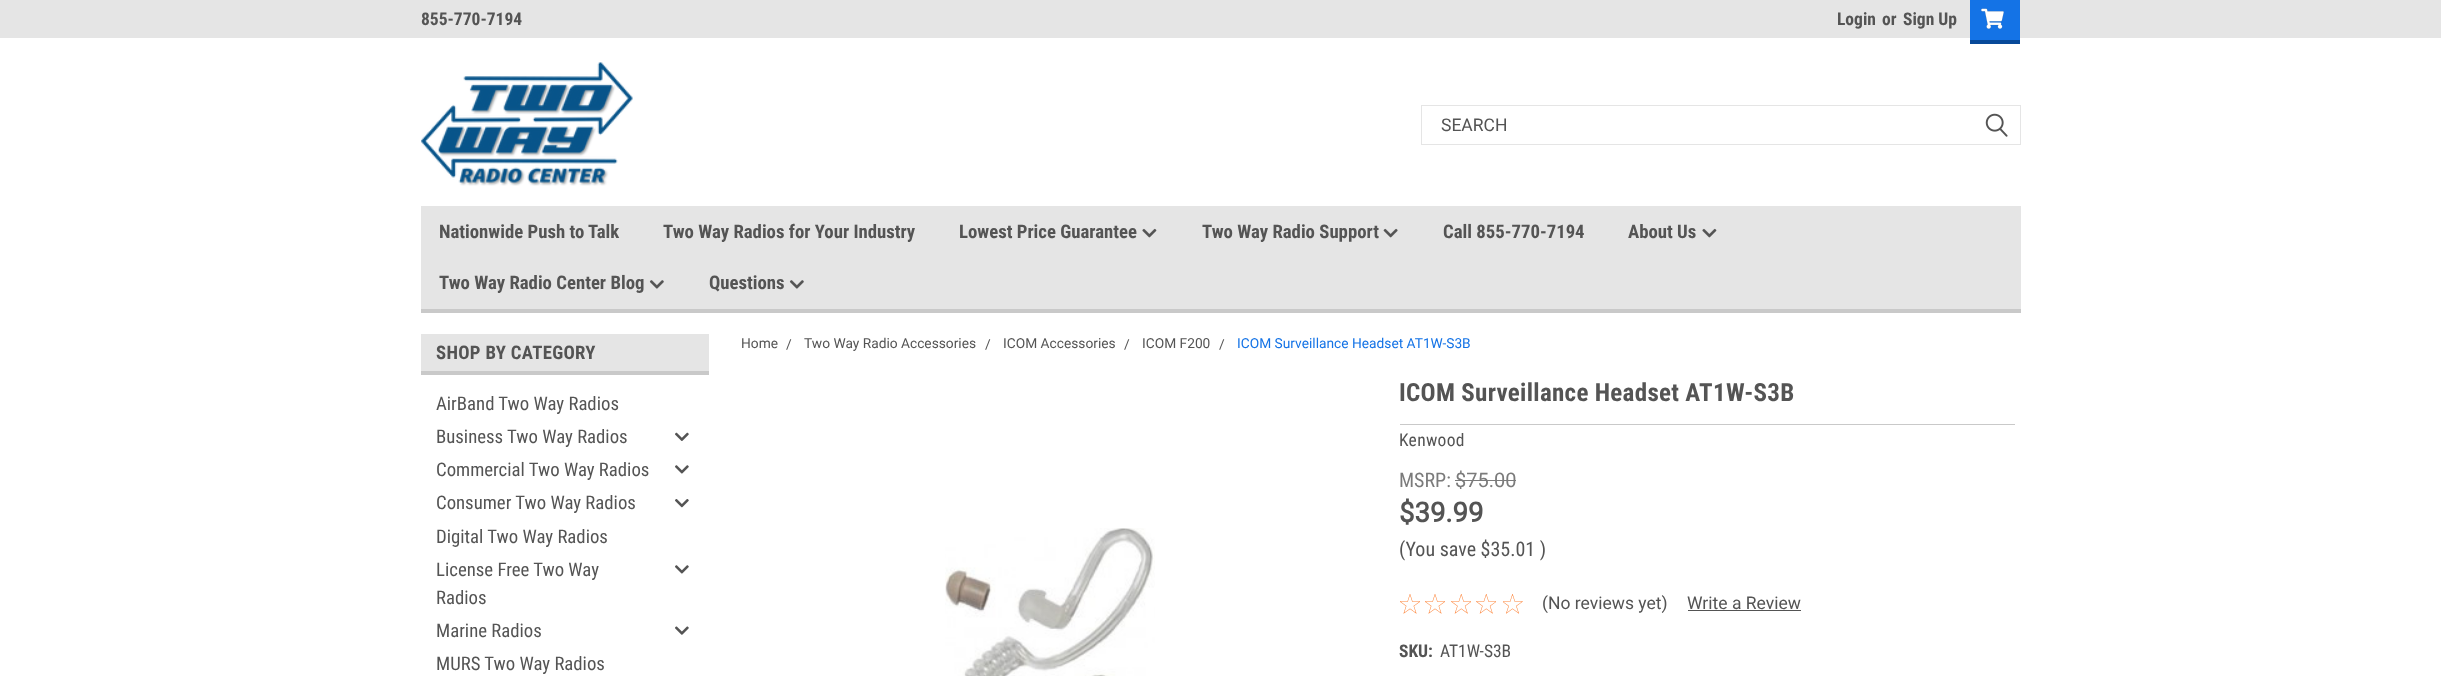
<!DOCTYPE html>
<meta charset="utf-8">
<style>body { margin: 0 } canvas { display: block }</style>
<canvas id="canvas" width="2441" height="676"></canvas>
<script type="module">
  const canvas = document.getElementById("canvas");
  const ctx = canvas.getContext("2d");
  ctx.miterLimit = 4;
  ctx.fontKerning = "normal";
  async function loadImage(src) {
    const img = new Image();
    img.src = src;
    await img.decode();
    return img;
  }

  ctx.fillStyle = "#ffffff";
  ctx.fillRect(0, 0, 2441, 676);
  ctx.fillStyle = "#e5e5e5";
  ctx.fillRect(0, 0, 2441, 38);
  ctx.font = "bold 17.5px Roboto Condensed";
  ctx.fillStyle = "#545454";
  ctx.fillText("855-770-7194", 421, 25);
  ctx.fillText("Login", 1837, 25);
  ctx.fillText("or", 1882, 25);
  ctx.fillText("Sign Up", 1903, 25);
  ctx.fillStyle = "#1473e6";
  ctx.fillRect(1970, 0, 50, 40);
  ctx.fillStyle = "#074999";
  ctx.fillRect(1970, 40, 50, 4);
  ctx.drawImage(await loadImage("img1.png"), 1981, 8, 23, 21);
  ctx.drawImage(await loadImage("img2.png"), 421, 62, 212, 124);
  ctx.strokeStyle = "#e5e5e5";
  ctx.strokeRect(1421.5, 105.5, 599, 39);
  ctx.font = "17.5px Roboto";
  ctx.fillStyle = "#545454";
  ctx.fillText("SEARCH", 1441, 131);
  ctx.drawImage(await loadImage("img3.png"), 1985, 113, 23, 24);
  ctx.fillStyle = "#e5e5e5";
  ctx.fillRect(421, 206, 1600, 103);
  ctx.fillStyle = "#c9c9c9";
  ctx.fillRect(421, 309, 1600, 4);
  ctx.font = "bold 18.75px Roboto Condensed";
  ctx.fillStyle = "#545454";
  ctx.fillText("Nationwide Push to Talk", 439, 238);
  ctx.fillText("Two Way Radios for Your Industry", 663, 238);
  ctx.fillText("Lowest Price Guarantee", 959, 238);
  ctx.drawImage(await loadImage("img4.png"), 1142, 228, 15, 10);
  ctx.fillText("Two Way Radio Support", 1202, 238);
  ctx.drawImage(await loadImage("img5.png"), 1383, 228, 15, 10);
  ctx.fillText("Call 855-770-7194", 1443, 238);
  ctx.fillText("About Us", 1628, 238);
  ctx.drawImage(await loadImage("img4.png"), 1702, 228, 15, 10);
  ctx.fillText("Two Way Radio Center Blog", 439, 289);
  ctx.drawImage(await loadImage("img6.png"), 649, 280, 15, 9);
  ctx.fillText("Questions", 709, 289);
  ctx.drawImage(await loadImage("img6.png"), 789, 280, 15, 9);
  ctx.fillStyle = "#e5e5e5";
  ctx.fillRect(421, 334, 288, 37);
  ctx.fillStyle = "#c9c9c9";
  ctx.fillRect(421, 371, 288, 4);
  ctx.letterSpacing = "0.3px";
  ctx.fillStyle = "#545454";
  ctx.fillText("SHOP BY CATEGORY", 436, 359);
  ctx.letterSpacing = "0px";
  ctx.font = "18.75px Roboto Condensed";
  ctx.fillText("AirBand Two Way Radios", 436, 410);
  ctx.fillText("Business Two Way Radios", 436, 443);
  ctx.drawImage(await loadImage("img7.png"), 675, 432, 14, 9);
  ctx.fillText("Commercial Two Way Radios", 436, 476);
  ctx.drawImage(await loadImage("img8.png"), 675, 465, 14, 9);
  ctx.fillText("Consumer Two Way Radios", 436, 509);
  ctx.drawImage(await loadImage("img9.png"), 675, 499, 14, 9);
  ctx.fillText("Digital Two Way Radios", 436, 543);
  ctx.fillText("License Free Two Way", 436, 576);
  ctx.fillText("Radios", 436, 604);
  ctx.drawImage(await loadImage("img8.png"), 675, 565, 14, 9);
  ctx.fillText("Marine Radios", 436, 637);
  ctx.drawImage(await loadImage("img10.png"), 675, 626, 14, 9);
  ctx.fillText("MURS Two Way Radios", 436, 670);
  ctx.font = "13.75px Roboto";
  ctx.fillText("Home", 741, 348);
  ctx.fillText("/", 786, 349);
  ctx.fillText("Two Way Radio Accessories", 804, 348);
  ctx.fillText("/", 985, 349);
  ctx.fillText("ICOM Accessories", 1003, 348);
  ctx.fillText("/", 1124, 349);
  ctx.fillText("ICOM F200", 1142, 348);
  ctx.fillText("/", 1219, 349);
  ctx.fillStyle = "#1473e6";
  ctx.fillText("ICOM Surveillance Headset AT1W-S3B", 1237, 348);
  ctx.drawImage(await loadImage("img11.png"), 945, 528, 210, 148);
  ctx.fillStyle = "#c9c9c9";
  ctx.fillRect(1400, 424, 615, 1);
  ctx.letterSpacing = "0.3px";
  ctx.font = "bold 25px Roboto Condensed";
  ctx.fillStyle = "#545454";
  ctx.fillText("ICOM Surveillance Headset AT1W-S3B", 1399, 401);
  ctx.font = "17.5px Roboto Condensed";
  ctx.fillText("Kenwood", 1399, 446);
  ctx.letterSpacing = "0px";
  ctx.font = "20px Roboto Condensed";
  ctx.fillStyle = "#7b7b7b";
  ctx.fillText("MSRP:", 1399, 487);
  ctx.font = "20px Roboto";
  ctx.fillText("$75.00", 1455, 487);
  ctx.fillRect(1455, 480, 61, 1);
  ctx.font = "bold 27.5px Roboto";
  ctx.fillStyle = "#545454";
  ctx.fillText("$39.99", 1399, 522);
  ctx.font = "20px Roboto Condensed";
  ctx.fillText("(You save $35.01 )", 1399, 556);
  ctx.drawImage(await loadImage("img12.png"), 1400, 594, 20, 20);
  ctx.drawImage(await loadImage("img12.png"), 1425, 594, 20, 20);
  ctx.drawImage(await loadImage("img13.png"), 1451, 594, 20, 20);
  ctx.drawImage(await loadImage("img13.png"), 1476, 594, 20, 20);
  ctx.drawImage(await loadImage("img14.png"), 1503, 594, 20, 20);
  ctx.font = "17.5px Roboto";
  ctx.fillText("(No reviews yet)", 1542, 609);
  ctx.fillText("Write a Review", 1687, 609);
  ctx.fillRect(1688, 610, 113, 1);
  ctx.font = "bold 17.5px Roboto Condensed";
  ctx.fillText("SKU:", 1399, 657);
  ctx.font = "17.5px Roboto Condensed";
  ctx.fillText("AT1W-S3B", 1440, 657);
</script>
